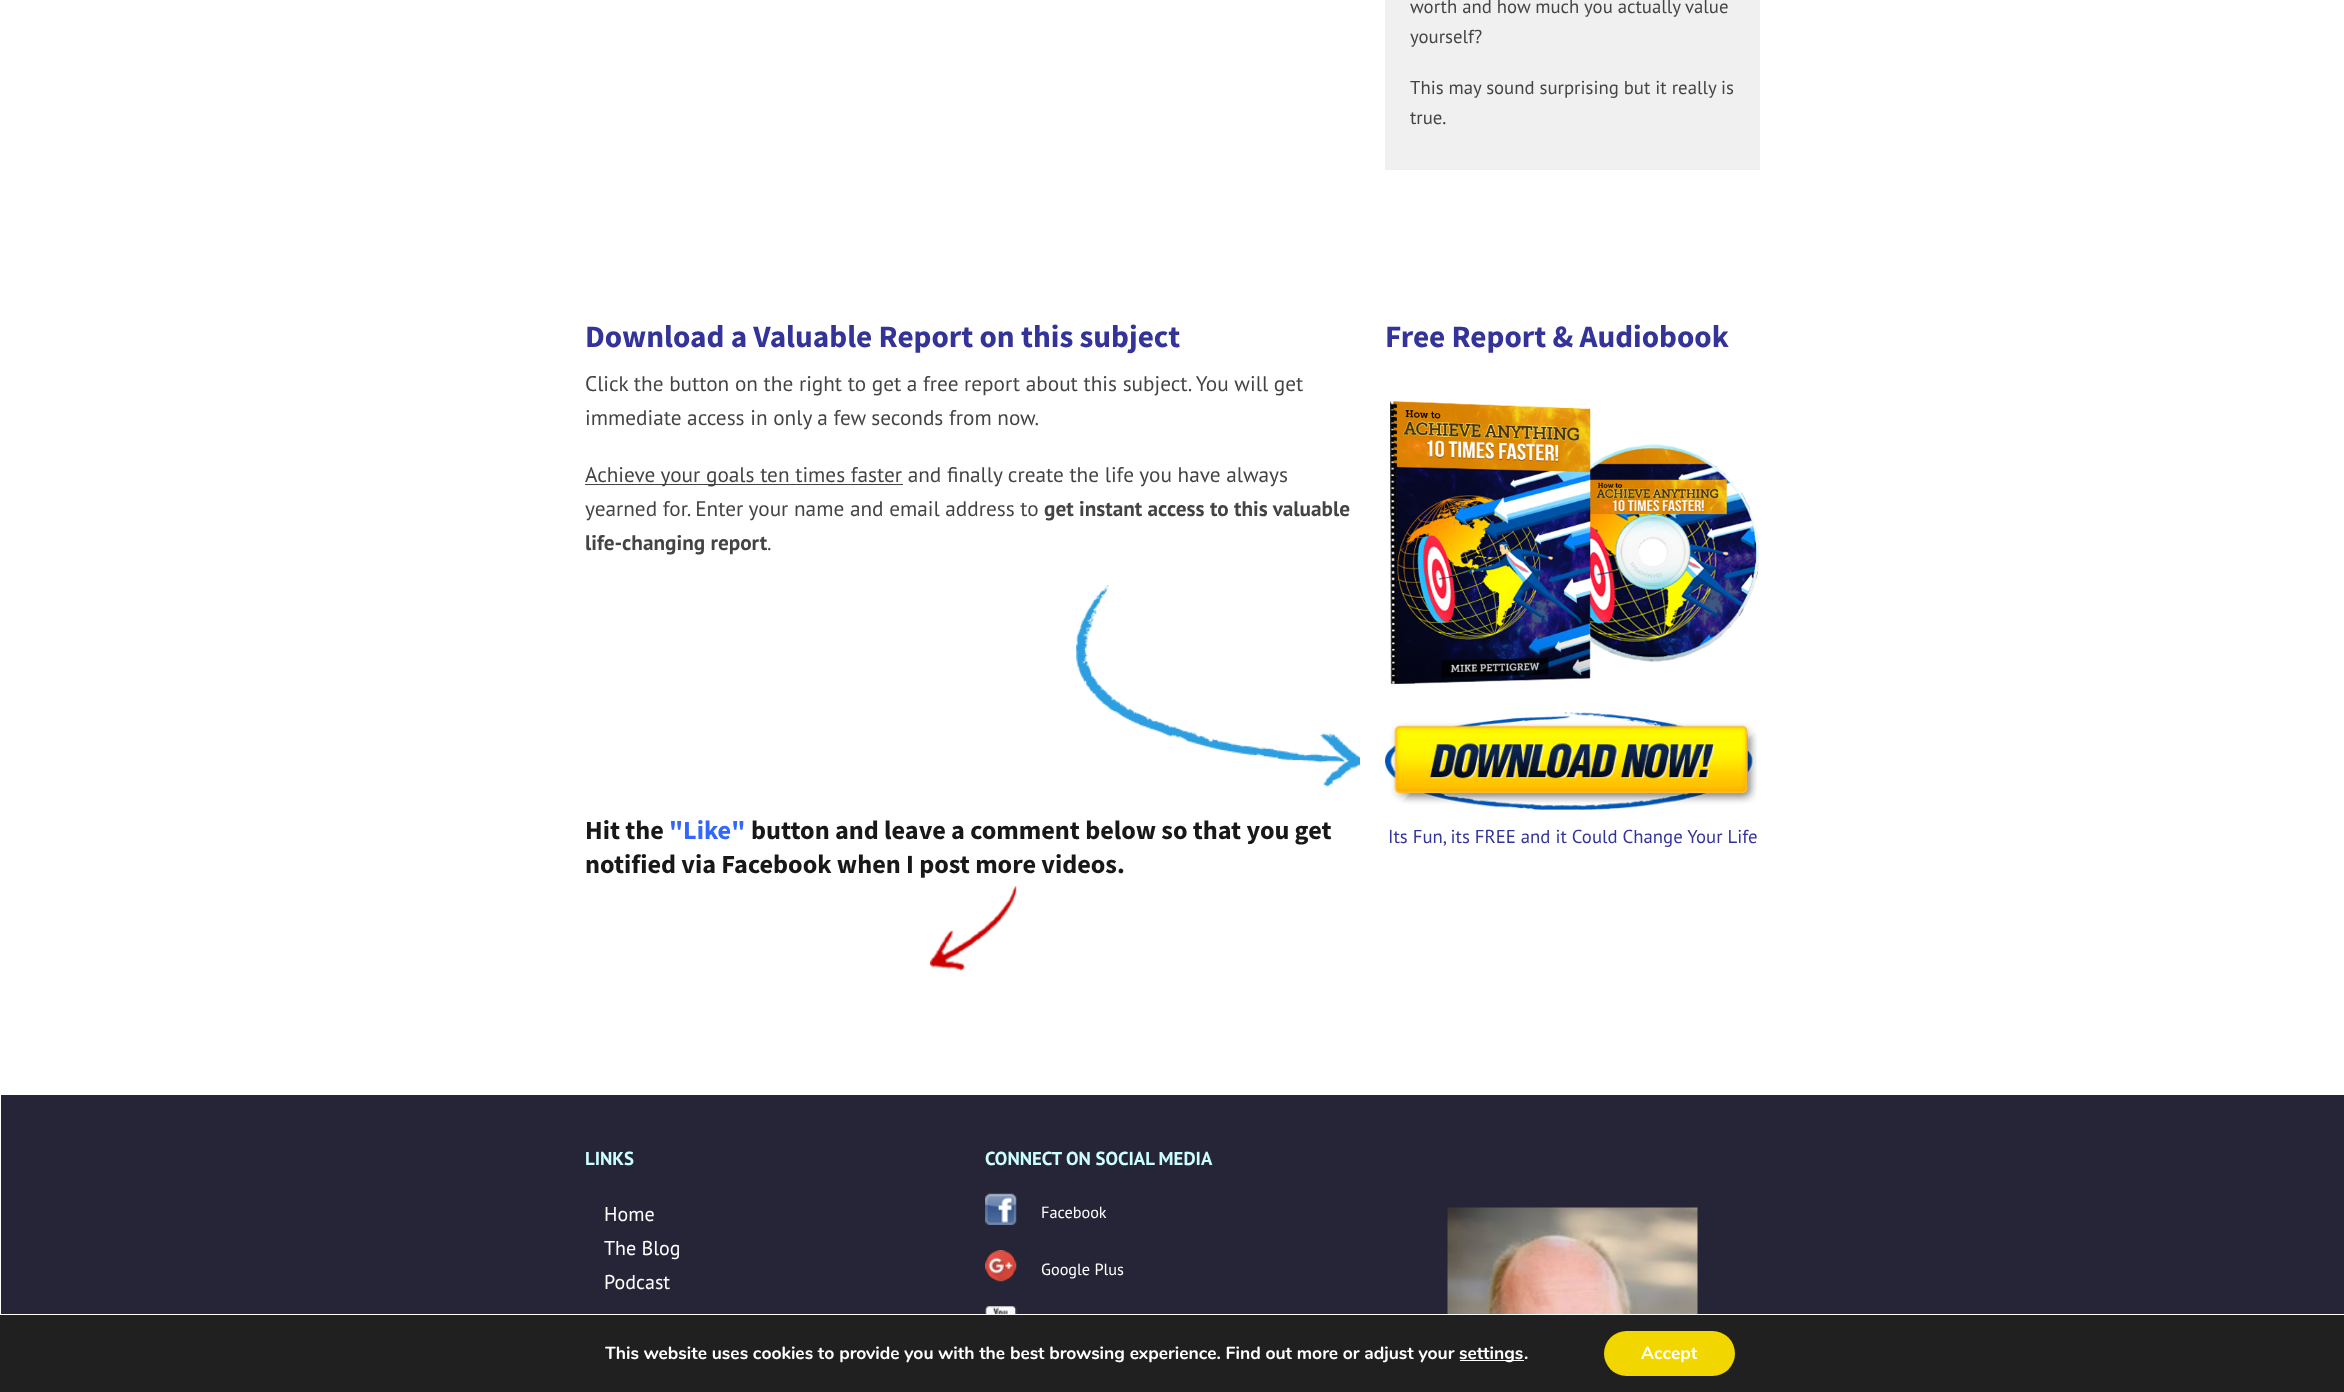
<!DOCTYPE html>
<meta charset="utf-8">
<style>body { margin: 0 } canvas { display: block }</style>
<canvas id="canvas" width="2344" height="1392"></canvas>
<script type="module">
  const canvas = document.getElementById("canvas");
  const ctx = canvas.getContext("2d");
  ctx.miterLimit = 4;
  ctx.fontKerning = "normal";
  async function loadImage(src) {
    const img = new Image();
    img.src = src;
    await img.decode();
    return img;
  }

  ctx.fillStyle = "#ffffff";
  ctx.fillRect(0, 0, 2344, 1392);
  ctx.fillStyle = "#f0f0f0";
  ctx.fillRect(1385, 0, 375, 170);
  ctx.font = "18.75px PT Sans";
  ctx.fillStyle = "#444444";
  ctx.fillText("worth and how much you actually value", 1410, 13);
  ctx.fillText("yourself?", 1410, 43);
  ctx.fillText("This may sound surprising but it really is", 1410, 94);
  ctx.fillText("true.", 1410, 124);
  ctx.font = "bold 31.25px Source Sans Pro";
  ctx.fillStyle = "#333399";
  ctx.fillText("Download a Valuable Report on this subject", 585, 347);
  ctx.font = "21.25px PT Sans";
  ctx.fillStyle = "#444444";
  ctx.fillText("Click the button on the right to get a free report about this subject. You will get", 585, 391);
  ctx.fillText("immediate access in only a few seconds from now.", 585, 425);
  ctx.fillRect(585, 484, 318, 1);
  ctx.fillText("Achieve your goals ten times faster and finally create the life you have always", 585, 482);
  ctx.fillText("yearned for. Enter your name and email address to", 585, 516);
  ctx.font = "bold 21.25px PT Sans";
  ctx.fillText("get instant access to this valuable", 1044, 516);
  ctx.fillText("life-changing report", 585, 550);
  ctx.font = "21.25px PT Sans";
  ctx.fillText(".", 767, 550);
  ctx.drawImage(await loadImage("img1.png"), 1076, 585, 284, 202);
  ctx.font = "bold 26.25px Source Sans Pro";
  ctx.fillStyle = "#181818";
  ctx.fillText("Hit the", 585, 839);
  ctx.fillStyle = "#3366ff";
  ctx.fillText("\"Like\"", 669, 839);
  ctx.fillStyle = "#181818";
  ctx.fillText("button and leave a comment below so that you get", 751, 839);
  ctx.fillText("notified via Facebook when I post more videos.", 585, 873);
  ctx.drawImage(await loadImage("img2.png"), 930, 886, 87, 85);
  ctx.font = "bold 31.25px Source Sans Pro";
  ctx.fillStyle = "#333399";
  ctx.fillText("Free Report & Audiobook", 1385, 347);
  ctx.drawImage(await loadImage("img3.png"), 1390, 401, 369, 283);
  ctx.drawImage(await loadImage("img4.png"), 1385, 712, 372, 98);
  ctx.drawImage(await loadImage("img5.png"), 1430, 743, 285, 36);
  ctx.font = "18.75px PT Sans";
  ctx.fillText("Its Fun, its FREE and it Could Change Your Life", 1388, 843);
  ctx.fillStyle = "#252537";
  ctx.fillRect(1, 1095, 2343, 219);
  ctx.font = "bold 18.75px PT Sans";
  ctx.fillStyle = "#ccffff";
  ctx.fillText("LINKS", 585, 1165);
  ctx.font = "20px PT Sans";
  ctx.fillStyle = "#ffffff";
  ctx.fillText("Home", 604, 1221);
  ctx.fillText("The Blog", 604, 1255);
  ctx.fillText("Podcast", 604, 1289);
  ctx.font = "bold 18.75px PT Sans";
  ctx.fillStyle = "#ccffff";
  ctx.fillText("CONNECT ON SOCIAL MEDIA", 985, 1165);
  ctx.drawImage(await loadImage("img6.png"), 985, 1193, 32, 32);
  ctx.font = "16.25px PT Sans";
  ctx.fillStyle = "#ffffff";
  ctx.fillText("Facebook", 1041, 1218);
  ctx.drawImage(await loadImage("img7.png"), 985, 1250, 32, 32);
  ctx.fillText("Google Plus", 1041, 1275);
  ctx.drawImage(await loadImage("img8.png"), 985, 1306, 32, 8);
  ctx.drawImage(await loadImage("img9.png"), 1447, 1207, 251, 107);
  ctx.fillStyle = "#202020";
  ctx.fillRect(0, 1315, 2344, 77);
  ctx.font = "bold 17.5px Nunito";
  ctx.fillStyle = "#ffffff";
  ctx.fillText("This website uses cookies to provide you with the best browsing experience. Find out more or adjust your", 605, 1359);
  ctx.fillRect(1460, 1360, 64, 1);
  ctx.fillText("settings", 1459, 1359);
  ctx.fillText(".", 1524, 1359);
  ctx.fillStyle = "#f1d600";
  ctx.beginPath();
  ctx.roundRect(1604, 1331, 131, 45, 22.5);
  ctx.fill();
  ctx.fillStyle = "#ffffff";
  ctx.fillText("Accept", 1641, 1359);
</script>
